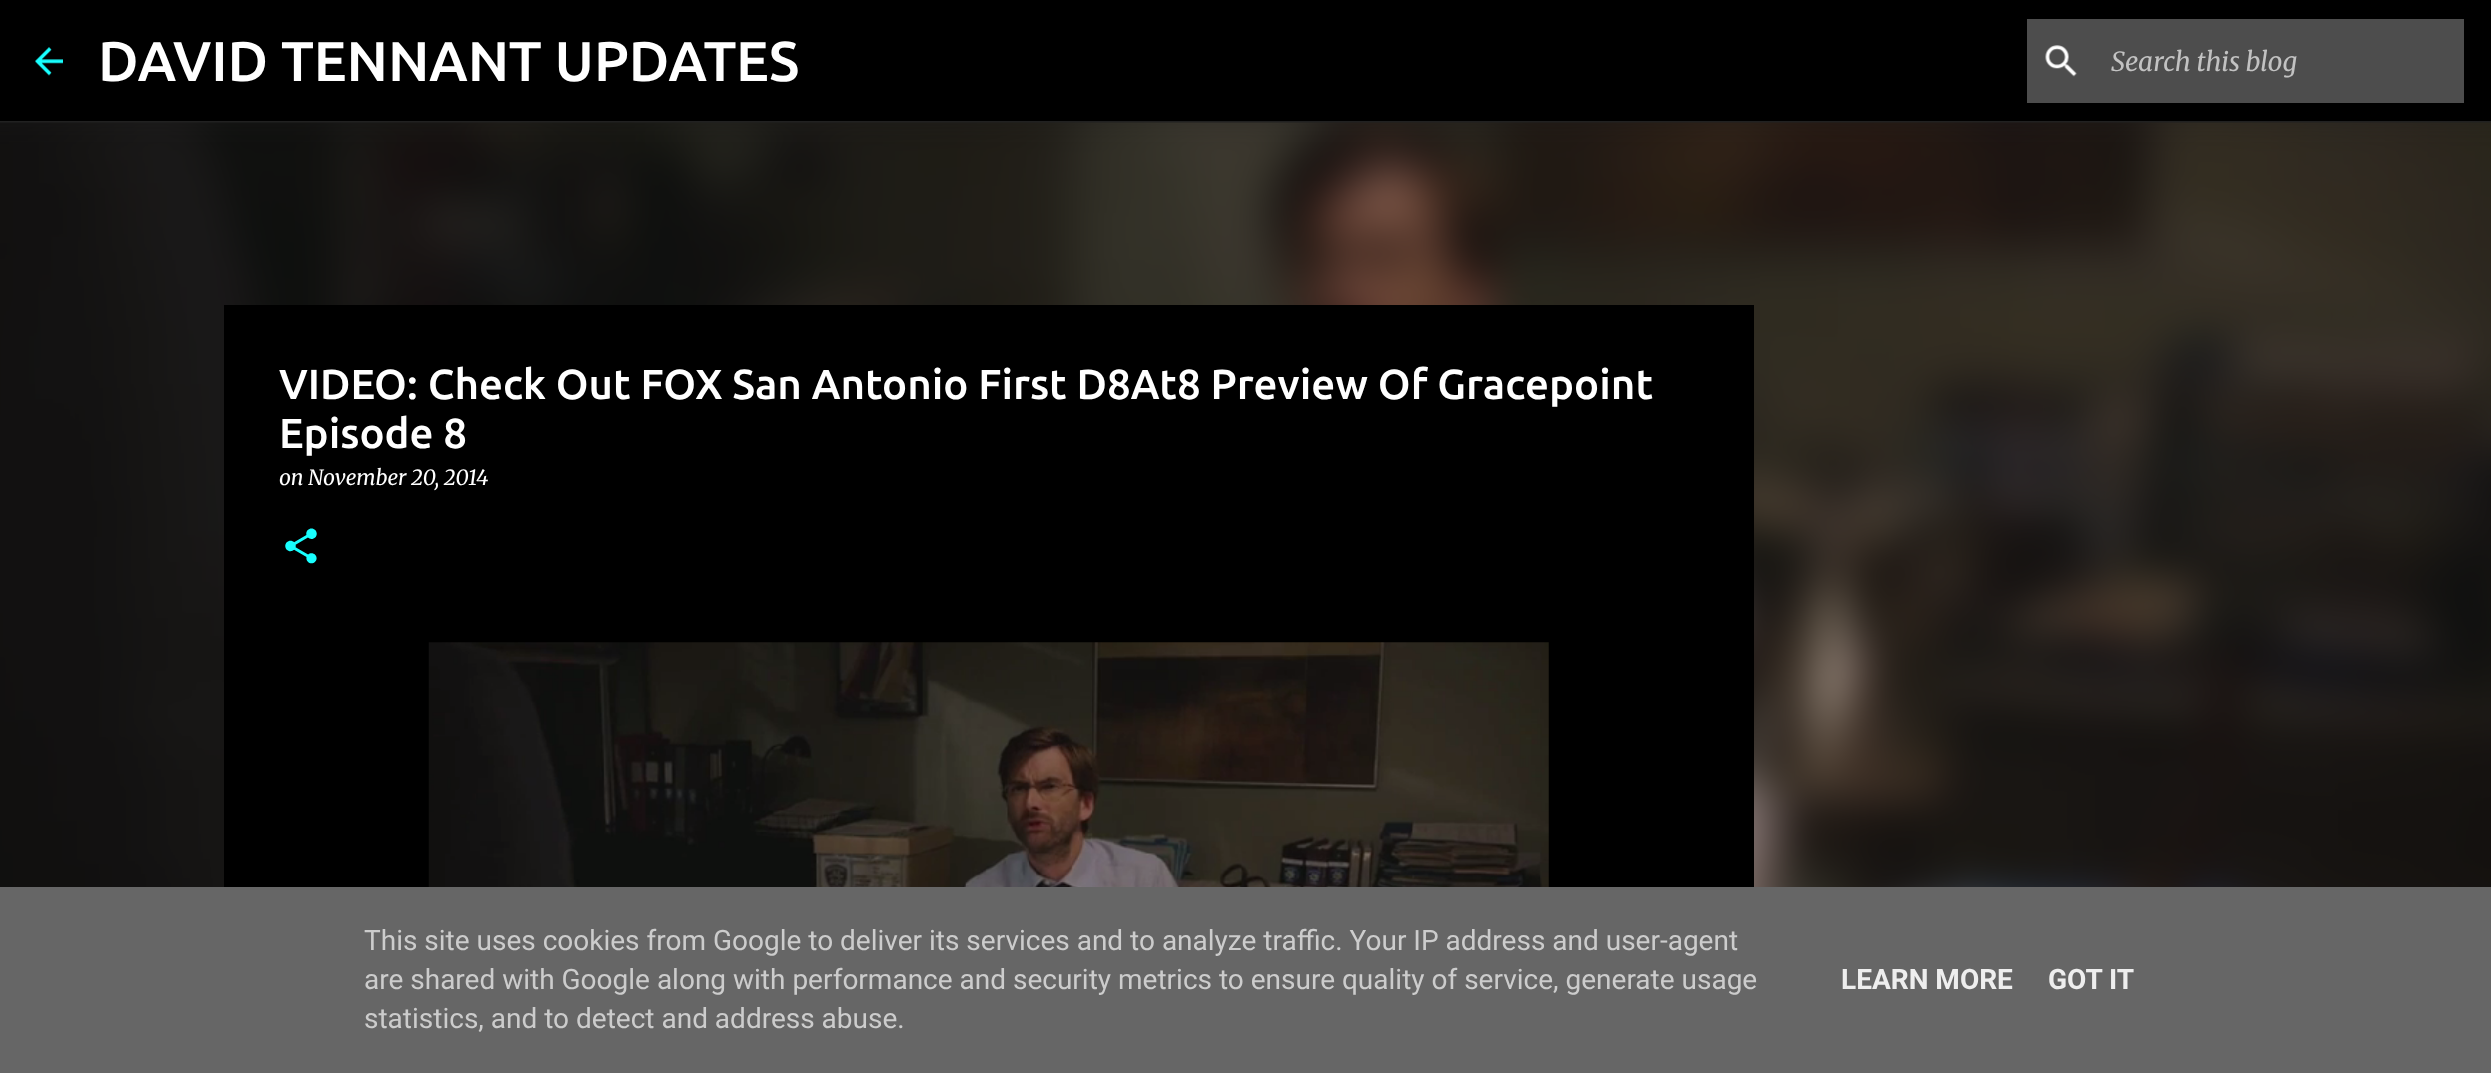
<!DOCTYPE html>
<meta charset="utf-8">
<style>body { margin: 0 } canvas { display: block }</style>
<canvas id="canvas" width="2491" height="1073"></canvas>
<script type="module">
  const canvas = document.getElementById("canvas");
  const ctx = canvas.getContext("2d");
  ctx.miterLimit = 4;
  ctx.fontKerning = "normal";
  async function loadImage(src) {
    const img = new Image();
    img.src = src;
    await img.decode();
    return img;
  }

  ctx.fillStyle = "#212121";
  ctx.fillRect(0, 0, 2491, 1073);
  ctx.fillStyle = "#000000";
  ctx.fillRect(0, 0, 2491, 121);
  ctx.drawImage(await loadImage("img1.png"), 35, 47, 28, 29);
  ctx.font = "500 56px Ubuntu";
  ctx.fillStyle = "#ffffff";
  ctx.fillText("DAVID TENNANT UPDATES", 98, 81);
  ctx.fillStyle = "#4d4d4d";
  ctx.fillRect(2027, 19, 437, 84);
  ctx.drawImage(await loadImage("img2.png"), 2045, 45, 32, 32);
  ctx.font = "italic 26.25px Merriweather";
  ctx.fillStyle = "#c2c2c2";
  ctx.fillText("Search this blog", 2111, 71);
  ctx.drawImage(await loadImage("img5.png"), 0, 122, 2491, 765);
  ctx.fillStyle = "#000000";
  ctx.fillRect(224, 305, 1530, 582);
  ctx.font = "500 42px Ubuntu";
  ctx.fillStyle = "#ffffff";
  ctx.fillText("VIDEO: Check Out FOX San Antonio First D8At8 Preview Of Gracepoint", 279, 399);
  ctx.fillText("Episode 8", 279, 448);
  ctx.font = "italic 21px Merriweather";
  ctx.fillText("on November 20, 2014", 279, 485);
  ctx.drawImage(await loadImage("img3.png"), 285, 528, 32, 36);
  ctx.drawImage(await loadImage("img4.png"), 428, 642, 1121, 245);
  ctx.fillStyle = "#666666";
  ctx.fillRect(0, 887, 2491, 186);
  ctx.font = "28px Roboto";
  ctx.fillStyle = "#cccccc";
  ctx.fillText("This site uses cookies from Google to deliver its services and to analyze traffic. Your IP address and user-agent", 364, 950);
  ctx.fillText("are shared with Google along with performance and security metrics to ensure quality of service, generate usage", 364, 989);
  ctx.fillText("statistics, and to detect and address abuse.", 364, 1028);
  ctx.font = "bold 28px Roboto";
  ctx.fillStyle = "#eeeeee";
  ctx.fillText("LEARN MORE", 1841, 989);
  ctx.fillText("GOT IT", 2048, 989);
</script>
